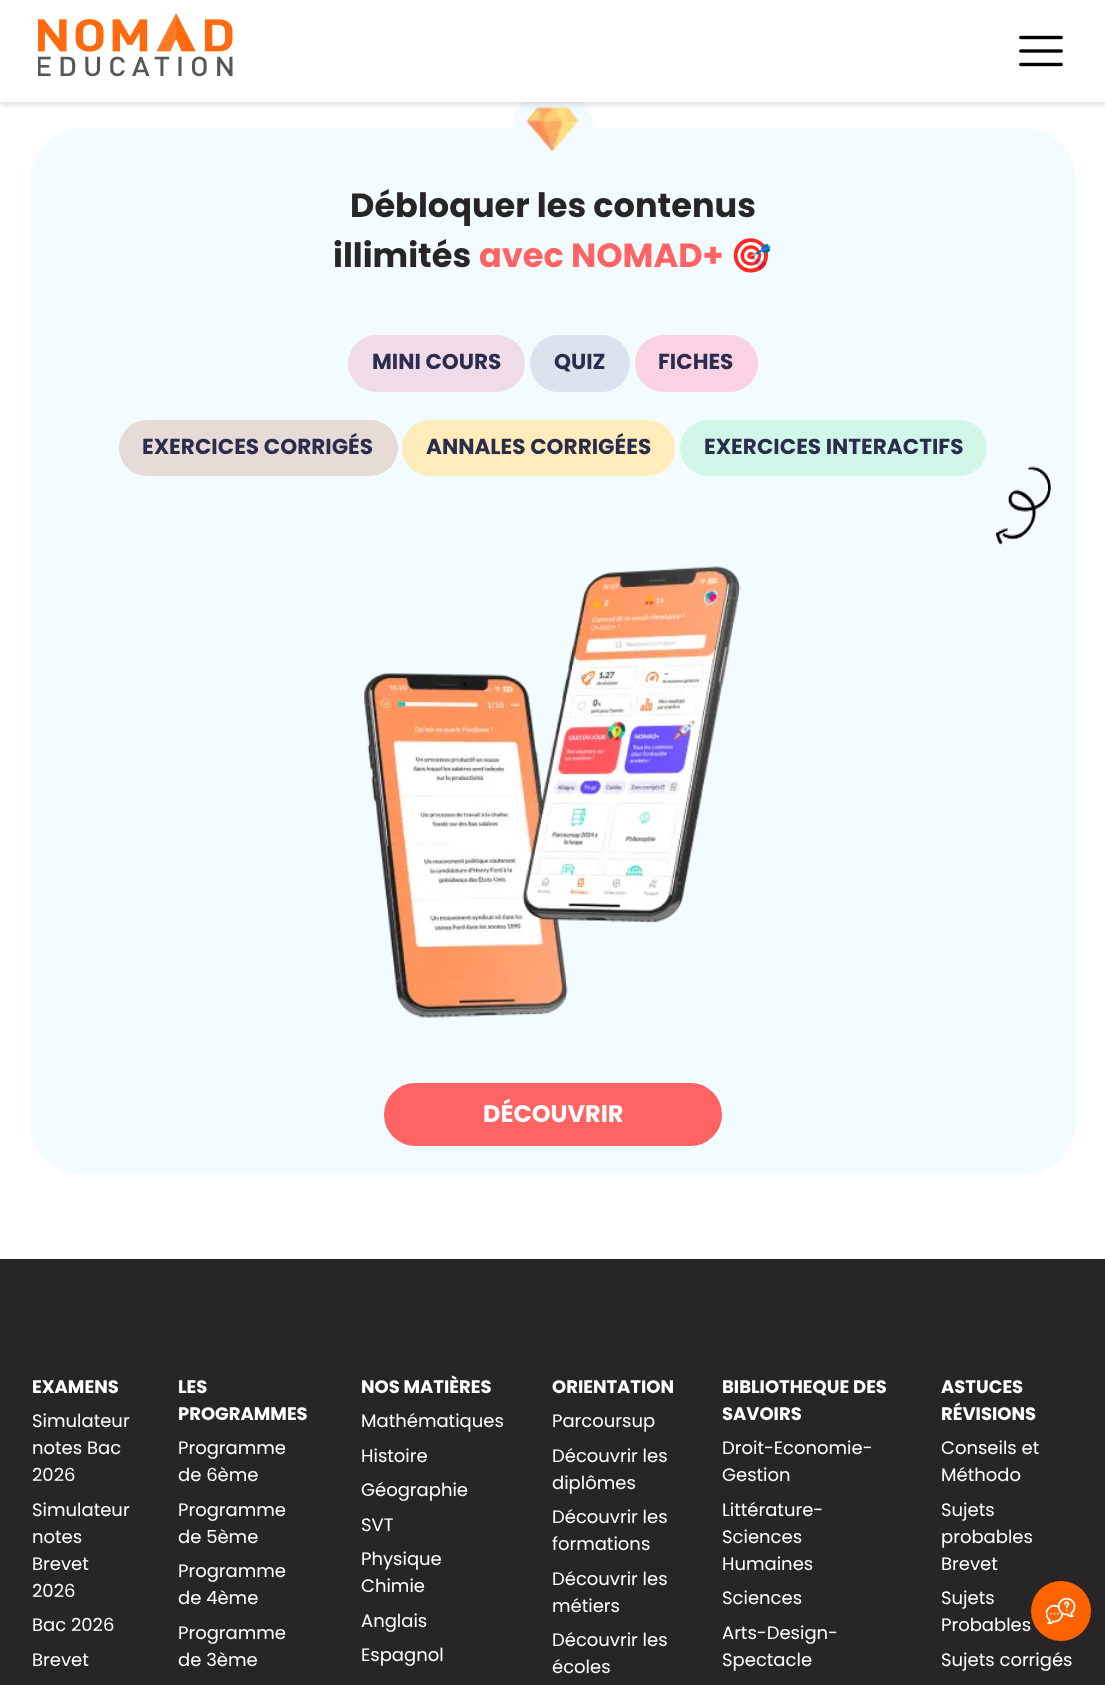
<!DOCTYPE html>
<meta charset="utf-8">
<style>body { margin: 0 } canvas { display: block }</style>
<canvas id="canvas" width="1105" height="1685"></canvas>
<script type="module">
  const canvas = document.getElementById("canvas");
  const ctx = canvas.getContext("2d");
  ctx.miterLimit = 4;
  ctx.fontKerning = "normal";
  async function loadImage(src) {
    const img = new Image();
    img.src = src;
    await img.decode();
    return img;
  }

  ctx.fillStyle = "#ffffff";
  ctx.fillRect(0, 0, 1105, 1685);
  ctx.fillStyle = "#f2fbfe";
  ctx.beginPath();
  ctx.roundRect(30, 128, 1046, 1047, 53);
  ctx.fill();
  ctx.beginPath();
  ctx.roundRect(512, 90, 82, 92, 41);
  ctx.fill();
  ctx.drawImage(await loadImage("img3.png"), 526, 106, 53, 46);
  ctx.fillStyle = "rgba(0, 0, 0, 0.16)";
  ctx.filter = "blur(3px)";
  ctx.beginPath();
  ctx.rect(0, 2, 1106, 102);
  ctx.fill();
  ctx.filter = "none";
  ctx.fillStyle = "#ffffff";
  ctx.fillRect(0, 0, 1105, 102);
  ctx.drawImage(await loadImage("img1.png"), 38, 13, 195, 64);
  ctx.drawImage(await loadImage("img2.png"), 1019, 35, 44, 32);
  ctx.font = "bold 33.6px Poppins";
  ctx.fillStyle = "#272525";
  ctx.fillText("Débloquer les contenus", 350, 217);
  ctx.fillText("illimités", 333, 267);
  ctx.fillStyle = "#ff6363";
  ctx.fillText("avec NOMAD+", 479, 267);
  ctx.font = "33.6px Noto Color Emoji";
  ctx.fillStyle = "#272525";
  ctx.fillText("🎯", 730, 267);
  ctx.fillStyle = "#efdce8";
  ctx.beginPath();
  ctx.roundRect(348, 335, 177, 57, 28.5);
  ctx.fill();
  ctx.font = "bold 21.6px Poppins";
  ctx.fillStyle = "#2c2c4c";
  ctx.fillText("MINI COURS", 372, 369);
  ctx.fillStyle = "#dbe3ee";
  ctx.beginPath();
  ctx.roundRect(530, 335, 100, 57, 28.5);
  ctx.fill();
  ctx.fillStyle = "#2c2c4c";
  ctx.fillText("QUIZ", 554, 369);
  ctx.fillStyle = "#fad2e4";
  ctx.beginPath();
  ctx.roundRect(635, 335, 123, 57, 28.5);
  ctx.fill();
  ctx.fillStyle = "#2c2c4c";
  ctx.fillText("FICHES", 658, 369);
  ctx.fillStyle = "#e6dbd6";
  ctx.beginPath();
  ctx.roundRect(119, 420, 279, 56, 28);
  ctx.fill();
  ctx.fillStyle = "#2c2c4c";
  ctx.fillText("EXERCICES CORRIGÉS", 142, 454);
  ctx.fillStyle = "#ffecbb";
  ctx.beginPath();
  ctx.roundRect(402, 420, 273, 56, 28);
  ctx.fill();
  ctx.fillStyle = "#2c2c4c";
  ctx.fillText("ANNALES CORRIGÉES", 426, 454);
  ctx.fillStyle = "#d1f7e9";
  ctx.beginPath();
  ctx.roundRect(680, 420, 307, 56, 28);
  ctx.fill();
  ctx.fillStyle = "#2c2c4c";
  ctx.fillText("EXERCICES INTERACTIFS", 704, 454);
  ctx.drawImage(await loadImage("img4.png"), 995, 466, 56, 79);
  ctx.drawImage(await loadImage("img5.png"), 364, 566, 377, 452);
  ctx.fillStyle = "#ff6363";
  ctx.beginPath();
  ctx.roundRect(385.5, 1084.5, 335, 60, 30);
  ctx.fill();
  ctx.strokeStyle = "#ff6363";
  ctx.lineWidth = 3;
  ctx.stroke();
  ctx.font = "bold 24px Poppins";
  ctx.fillStyle = "#ffffff";
  ctx.fillText("DÉCOUVRIR", 483, 1122);
  ctx.fillStyle = "#272525";
  ctx.fillRect(0, 1259, 1105, 426);
  ctx.fillStyle = "#ff6201";
  ctx.beginPath();
  ctx.arc(1061, 1611, 30, 0, Math.PI * 2);
  ctx.fill();
  ctx.drawImage(await loadImage("img6.png"), 1046, 1597, 30, 28);
  ctx.font = "bold 18px Poppins";
  ctx.fillStyle = "#ffffff";
  ctx.fillText("EXAMENS", 32, 1393);
  ctx.font = "18px Poppins";
  ctx.fillText("Simulateur", 32, 1427);
  ctx.fillText("notes Bac", 32, 1454);
  ctx.fillText("2026", 32, 1481);
  ctx.fillText("Simulateur", 32, 1516);
  ctx.fillText("notes", 32, 1543);
  ctx.fillText("Brevet", 32, 1570);
  ctx.fillText("2026", 32, 1597);
  ctx.fillText("Bac 2026", 32, 1631);
  ctx.fillText("Brevet", 32, 1666);
  ctx.font = "bold 18px Poppins";
  ctx.fillText("LES", 178, 1393);
  ctx.fillText("PROGRAMMES", 178, 1420);
  ctx.font = "18px Poppins";
  ctx.fillText("Programme", 178, 1454);
  ctx.fillText("de 6ème", 178, 1481);
  ctx.fillText("Programme", 178, 1516);
  ctx.fillText("de 5ème", 178, 1543);
  ctx.fillText("Programme", 178, 1577);
  ctx.fillText("de 4ème", 178, 1604);
  ctx.fillText("Programme", 178, 1639);
  ctx.fillText("de 3ème", 178, 1666);
  ctx.font = "bold 18px Poppins";
  ctx.fillText("NOS MATIÈRES", 361, 1393);
  ctx.font = "18px Poppins";
  ctx.fillText("Mathématiques", 361, 1427);
  ctx.fillText("Histoire", 361, 1462);
  ctx.fillText("Géographie", 361, 1496);
  ctx.fillText("SVT", 361, 1531);
  ctx.fillText("Physique", 361, 1565);
  ctx.fillText("Chimie", 361, 1592);
  ctx.fillText("Anglais", 361, 1627);
  ctx.fillText("Espagnol", 361, 1661);
  ctx.font = "bold 18px Poppins";
  ctx.fillText("ORIENTATION", 552, 1393);
  ctx.font = "18px Poppins";
  ctx.fillText("Parcoursup", 552, 1427);
  ctx.fillText("Découvrir les", 552, 1462);
  ctx.fillText("diplômes", 552, 1489);
  ctx.fillText("Découvrir les", 552, 1523);
  ctx.fillText("formations", 552, 1550);
  ctx.fillText("Découvrir les", 552, 1585);
  ctx.fillText("métiers", 552, 1612);
  ctx.fillText("Découvrir les", 552, 1646);
  ctx.fillText("écoles", 552, 1673);
  ctx.font = "bold 18px Poppins";
  ctx.fillText("BIBLIOTHEQUE DES", 722, 1393);
  ctx.fillText("SAVOIRS", 722, 1420);
  ctx.font = "18px Poppins";
  ctx.fillText("Droit-Economie-", 722, 1454);
  ctx.fillText("Gestion", 722, 1481);
  ctx.fillText("Littérature-", 722, 1516);
  ctx.fillText("Sciences", 722, 1543);
  ctx.fillText("Humaines", 722, 1570);
  ctx.fillText("Sciences", 722, 1604);
  ctx.fillText("Arts-Design-", 722, 1639);
  ctx.fillText("Spectacle", 722, 1666);
  ctx.font = "bold 18px Poppins";
  ctx.fillText("ASTUCES", 941, 1393);
  ctx.fillText("RÉVISIONS", 941, 1420);
  ctx.font = "18px Poppins";
  ctx.fillText("Conseils et", 941, 1454);
  ctx.fillText("Méthodo", 941, 1481);
  ctx.fillText("Sujets", 941, 1516);
  ctx.fillText("probables", 941, 1543);
  ctx.fillText("Brevet", 941, 1570);
  ctx.fillText("Sujets", 941, 1604);
  ctx.fillText("Probables", 941, 1631);
  ctx.fillText("Sujets corrigés", 941, 1666);
</script>
